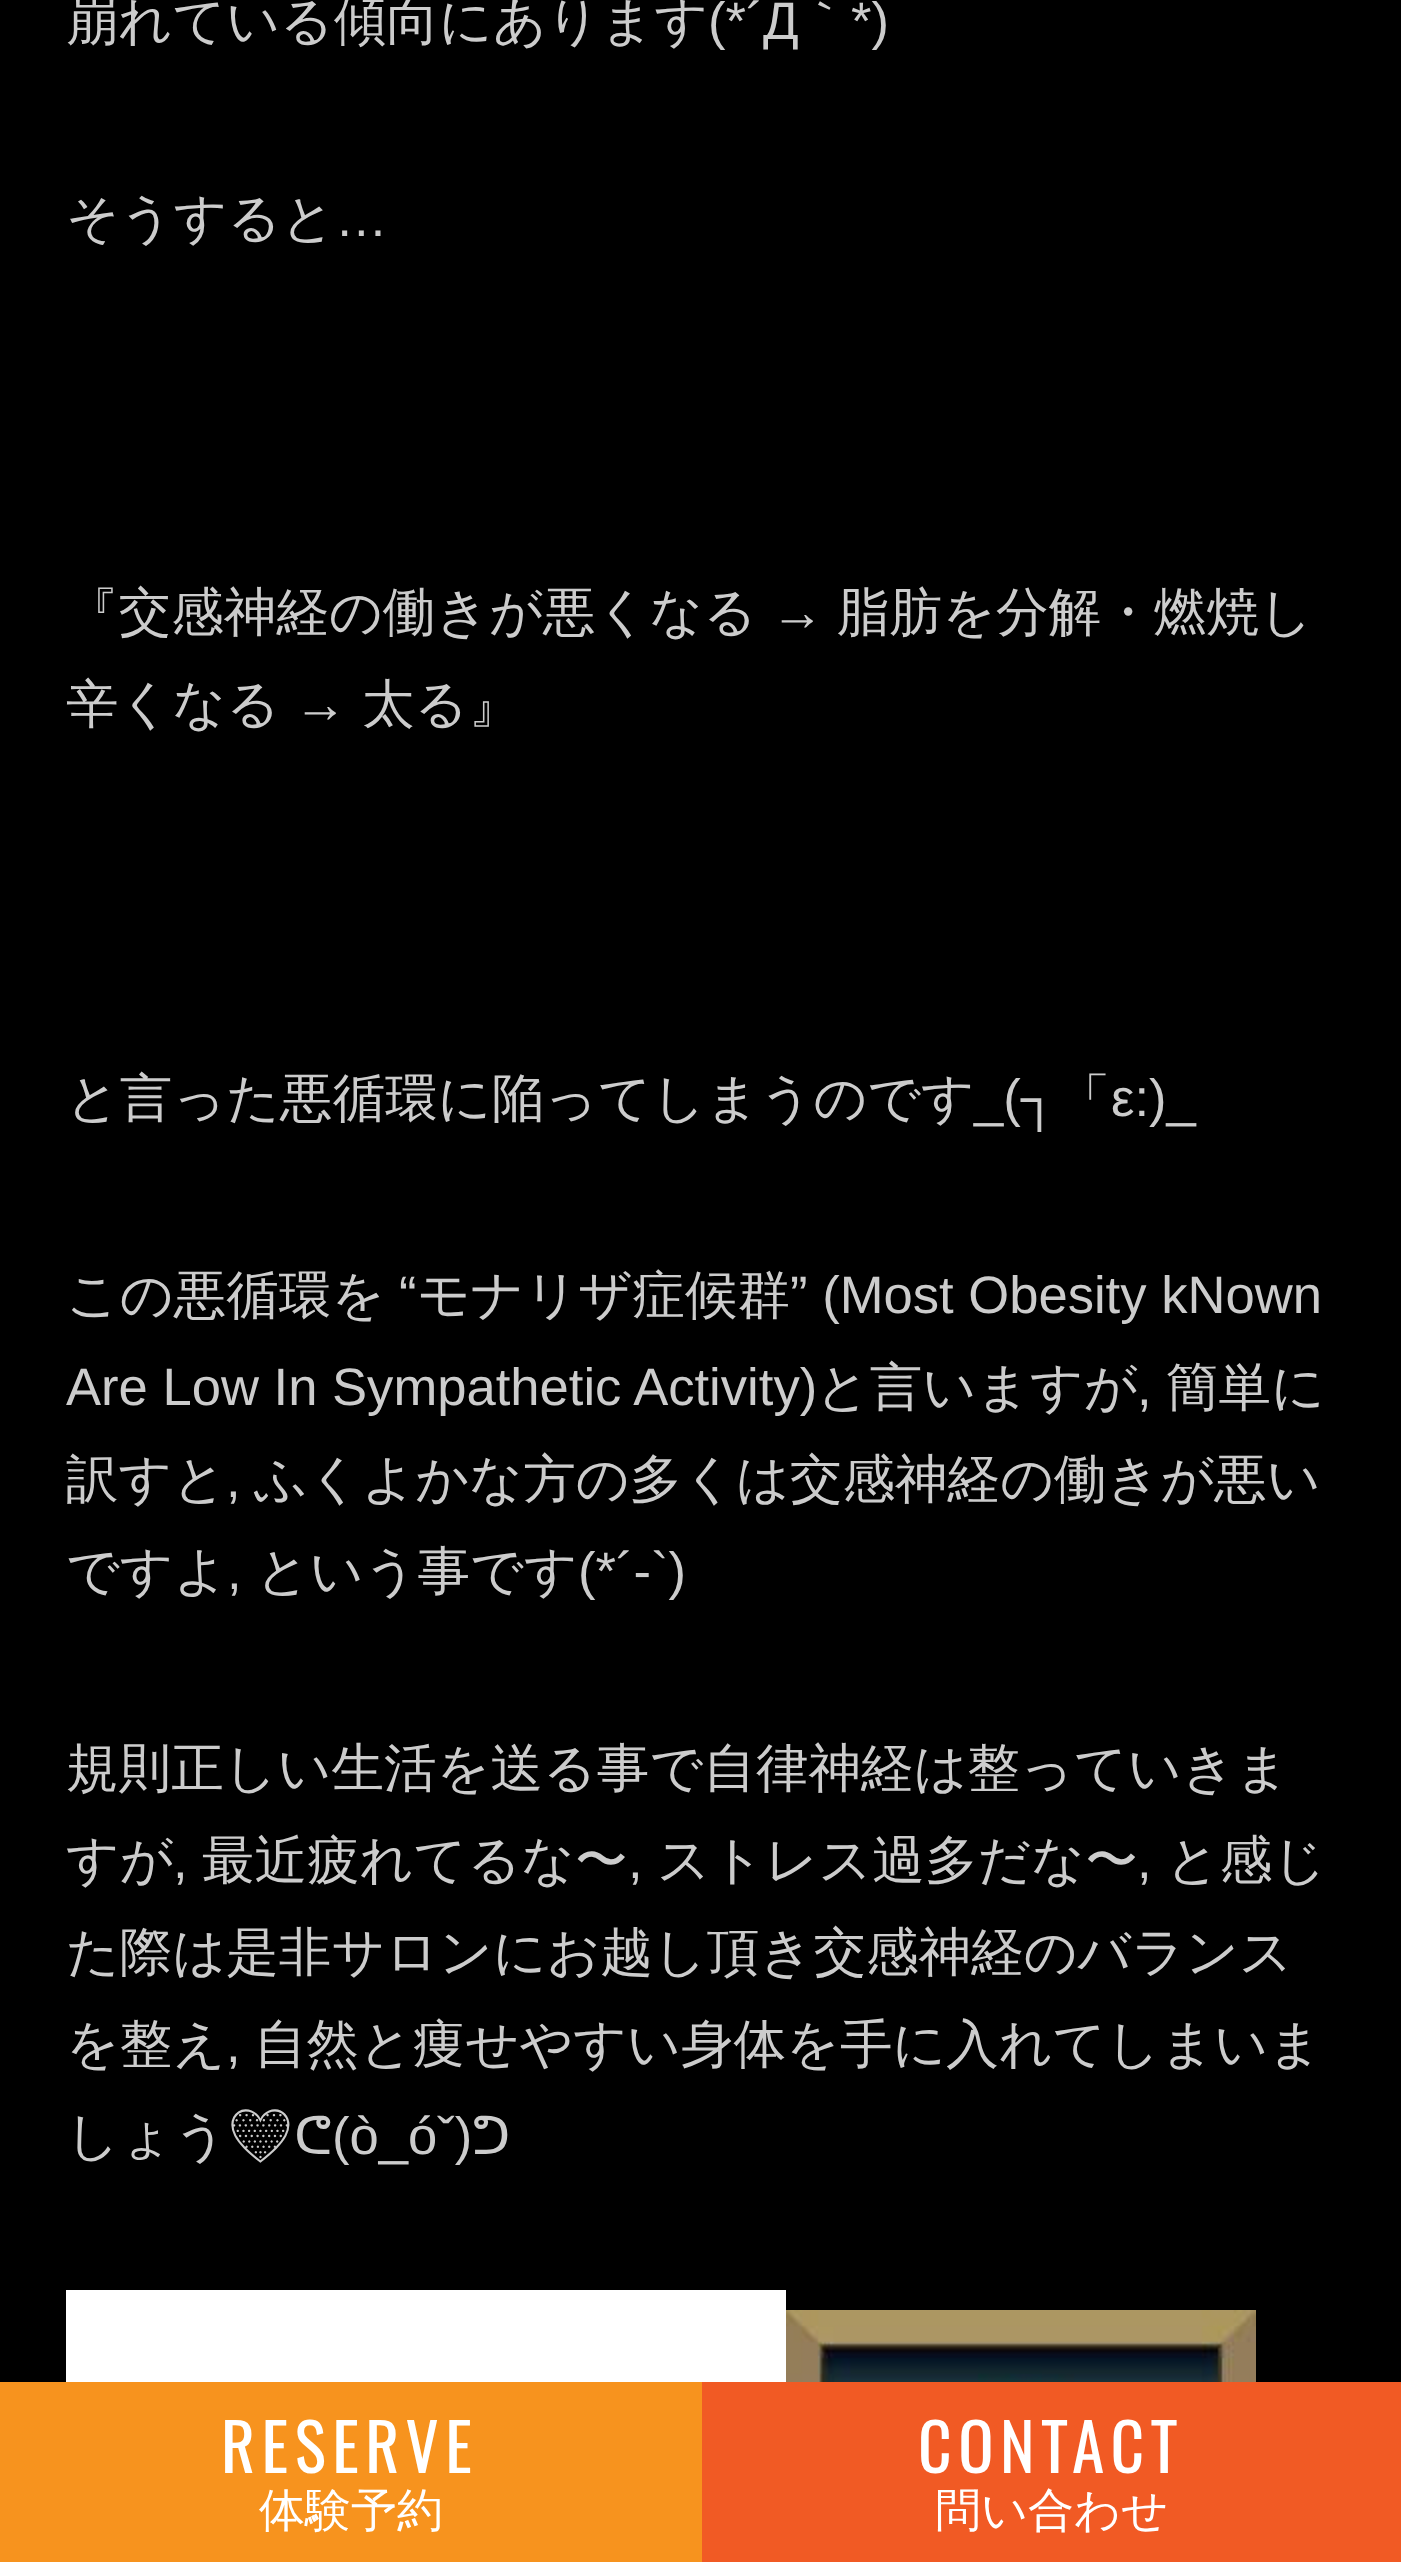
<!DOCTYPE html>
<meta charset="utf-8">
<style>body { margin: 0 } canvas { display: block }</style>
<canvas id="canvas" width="1401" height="2562"></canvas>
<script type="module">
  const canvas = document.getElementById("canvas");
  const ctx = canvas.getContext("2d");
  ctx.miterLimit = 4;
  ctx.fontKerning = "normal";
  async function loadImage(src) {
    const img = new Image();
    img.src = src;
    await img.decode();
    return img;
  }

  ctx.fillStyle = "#000000";
  ctx.fillRect(0, 0, 1401, 2562);
  ctx.font = "500 52.6px WenQuanYi Zen Hei";
  ctx.fillStyle = "#cccccc";
  ctx.fillText("崩れている傾向にあります", 66, 39);
  ctx.font = "52.6px Liberation Sans";
  ctx.fillText("(*´", 708, 39);
  ctx.fillText("Д", 763, 39);
  ctx.font = "500 52.6px WenQuanYi Zen Hei";
  ctx.fillText("｀", 798, 39);
  ctx.font = "52.6px Liberation Sans";
  ctx.fillText("*)", 851, 39);
  ctx.font = "500 52.6px WenQuanYi Zen Hei";
  ctx.fillText("そうすると", 66, 236);
  ctx.font = "52.6px Liberation Sans";
  ctx.fillText("…", 335, 236);
  ctx.font = "500 52.6px WenQuanYi Zen Hei";
  ctx.fillText("『交感神経の働きが悪くなる", 66, 630);
  ctx.font = "52.6px Liberation Sans";
  ctx.fillText("→", 771, 630);
  ctx.font = "500 52.6px WenQuanYi Zen Hei";
  ctx.fillText("脂肪を分解・燃焼し", 837, 630);
  ctx.fillText("辛くなる", 66, 722);
  ctx.font = "52.6px Liberation Sans";
  ctx.fillText("→", 294, 722);
  ctx.font = "500 52.6px WenQuanYi Zen Hei";
  ctx.fillText("太る』", 362, 722);
  ctx.fillText("と言った悪循環に陥ってしまうのです", 66, 1116);
  ctx.font = "52.6px Liberation Sans";
  ctx.fillText("_(┐", 974, 1116);
  ctx.font = "500 52.6px WenQuanYi Zen Hei";
  ctx.fillText("「", 1058, 1116);
  ctx.font = "52.6px Liberation Sans";
  ctx.fillText("ε:)_", 1111, 1116);
  ctx.font = "500 52.6px WenQuanYi Zen Hei";
  ctx.fillText("この悪循環を", 66, 1313);
  ctx.font = "52.6px Liberation Sans";
  ctx.fillText("“", 399, 1313);
  ctx.font = "500 52.6px WenQuanYi Zen Hei";
  ctx.fillText("モナリザ症候群", 417, 1313);
  ctx.font = "52.6px Liberation Sans";
  ctx.fillText("” (Most Obesity kNown", 790, 1313);
  ctx.fillText("Are Low In Sympathetic Activity)", 66, 1405);
  ctx.font = "500 52.6px WenQuanYi Zen Hei";
  ctx.fillText("と言いますが", 816, 1405);
  ctx.font = "52.6px Liberation Sans";
  ctx.fillText(",", 1137, 1405);
  ctx.font = "500 52.6px WenQuanYi Zen Hei";
  ctx.fillText("簡単に", 1166, 1405);
  ctx.fillText("訳すと", 66, 1497);
  ctx.font = "52.6px Liberation Sans";
  ctx.fillText(",", 226, 1497);
  ctx.font = "500 52.6px WenQuanYi Zen Hei";
  ctx.fillText("ふくよかな方の多くは交感神経の働きが悪い", 254, 1497);
  ctx.fillText("ですよ", 66, 1589);
  ctx.font = "52.6px Liberation Sans";
  ctx.fillText(",", 227, 1589);
  ctx.font = "500 52.6px WenQuanYi Zen Hei";
  ctx.fillText("という事です", 256, 1589);
  ctx.font = "52.6px Liberation Sans";
  ctx.fillText("(*´-`)", 578, 1589);
  ctx.font = "500 52.6px WenQuanYi Zen Hei";
  ctx.fillText("規則正しい生活を送る事で自律神経は整っていきま", 66, 1786);
  ctx.fillText("すが", 66, 1878);
  ctx.font = "52.6px Liberation Sans";
  ctx.fillText(",", 173, 1878);
  ctx.font = "500 52.6px WenQuanYi Zen Hei";
  ctx.fillText("最近疲れてるな〜", 202, 1878);
  ctx.font = "52.6px Liberation Sans";
  ctx.fillText(",", 628, 1878);
  ctx.font = "500 52.6px WenQuanYi Zen Hei";
  ctx.fillText("ストレス過多だな〜", 657, 1878);
  ctx.font = "52.6px Liberation Sans";
  ctx.fillText(",", 1137, 1878);
  ctx.font = "500 52.6px WenQuanYi Zen Hei";
  ctx.fillText("と感じ", 1166, 1878);
  ctx.fillText("た際は是非サロンにお越し頂き交感神経のバランス", 66, 1970);
  ctx.fillText("を整え", 66, 2062);
  ctx.font = "52.6px Liberation Sans";
  ctx.fillText(",", 226, 2062);
  ctx.font = "500 52.6px WenQuanYi Zen Hei";
  ctx.fillText("自然と痩せやすい身体を手に入れてしまいま", 254, 2062);
  ctx.fillText("しょう", 66, 2154);
  ctx.font = "52.6px Noto Emoji";
  ctx.fillText("💛︎", 227, 2154);
  ctx.font = "52.6px DejaVu Sans";
  ctx.fillText("ᕦ", 294, 2154);
  ctx.font = "52.6px Liberation Sans";
  ctx.fillText("(ò_óˇ)", 332, 2154);
  ctx.font = "52.6px DejaVu Sans";
  ctx.fillText("ᕤ", 472, 2154);
  ctx.drawImage(await loadImage("img1.png"), 66, 2290, 720, 92);
  ctx.drawImage(await loadImage("img2.png"), 786, 2310, 470, 72);
  ctx.fillStyle = "#f7931e";
  ctx.fillRect(0, 2382, 702, 180);
  ctx.letterSpacing = "6.5px";
  ctx.font = "65.5px Oswald";
  ctx.fillStyle = "#ffffff";
  ctx.fillText("RESERVE", 221, 2473);
  ctx.letterSpacing = "0px";
  ctx.font = "500 46px WenQuanYi Zen Hei";
  ctx.fillText("体験予約", 259, 2526);
  ctx.fillStyle = "#f15a24";
  ctx.fillRect(702, 2382, 699, 180);
  ctx.letterSpacing = "6.5px";
  ctx.font = "65.5px Oswald";
  ctx.fillStyle = "#ffffff";
  ctx.fillText("CONTACT", 918, 2473);
  ctx.letterSpacing = "0px";
  ctx.font = "500 46px WenQuanYi Zen Hei";
  ctx.fillText("問い合わせ", 935, 2526);
</script>
